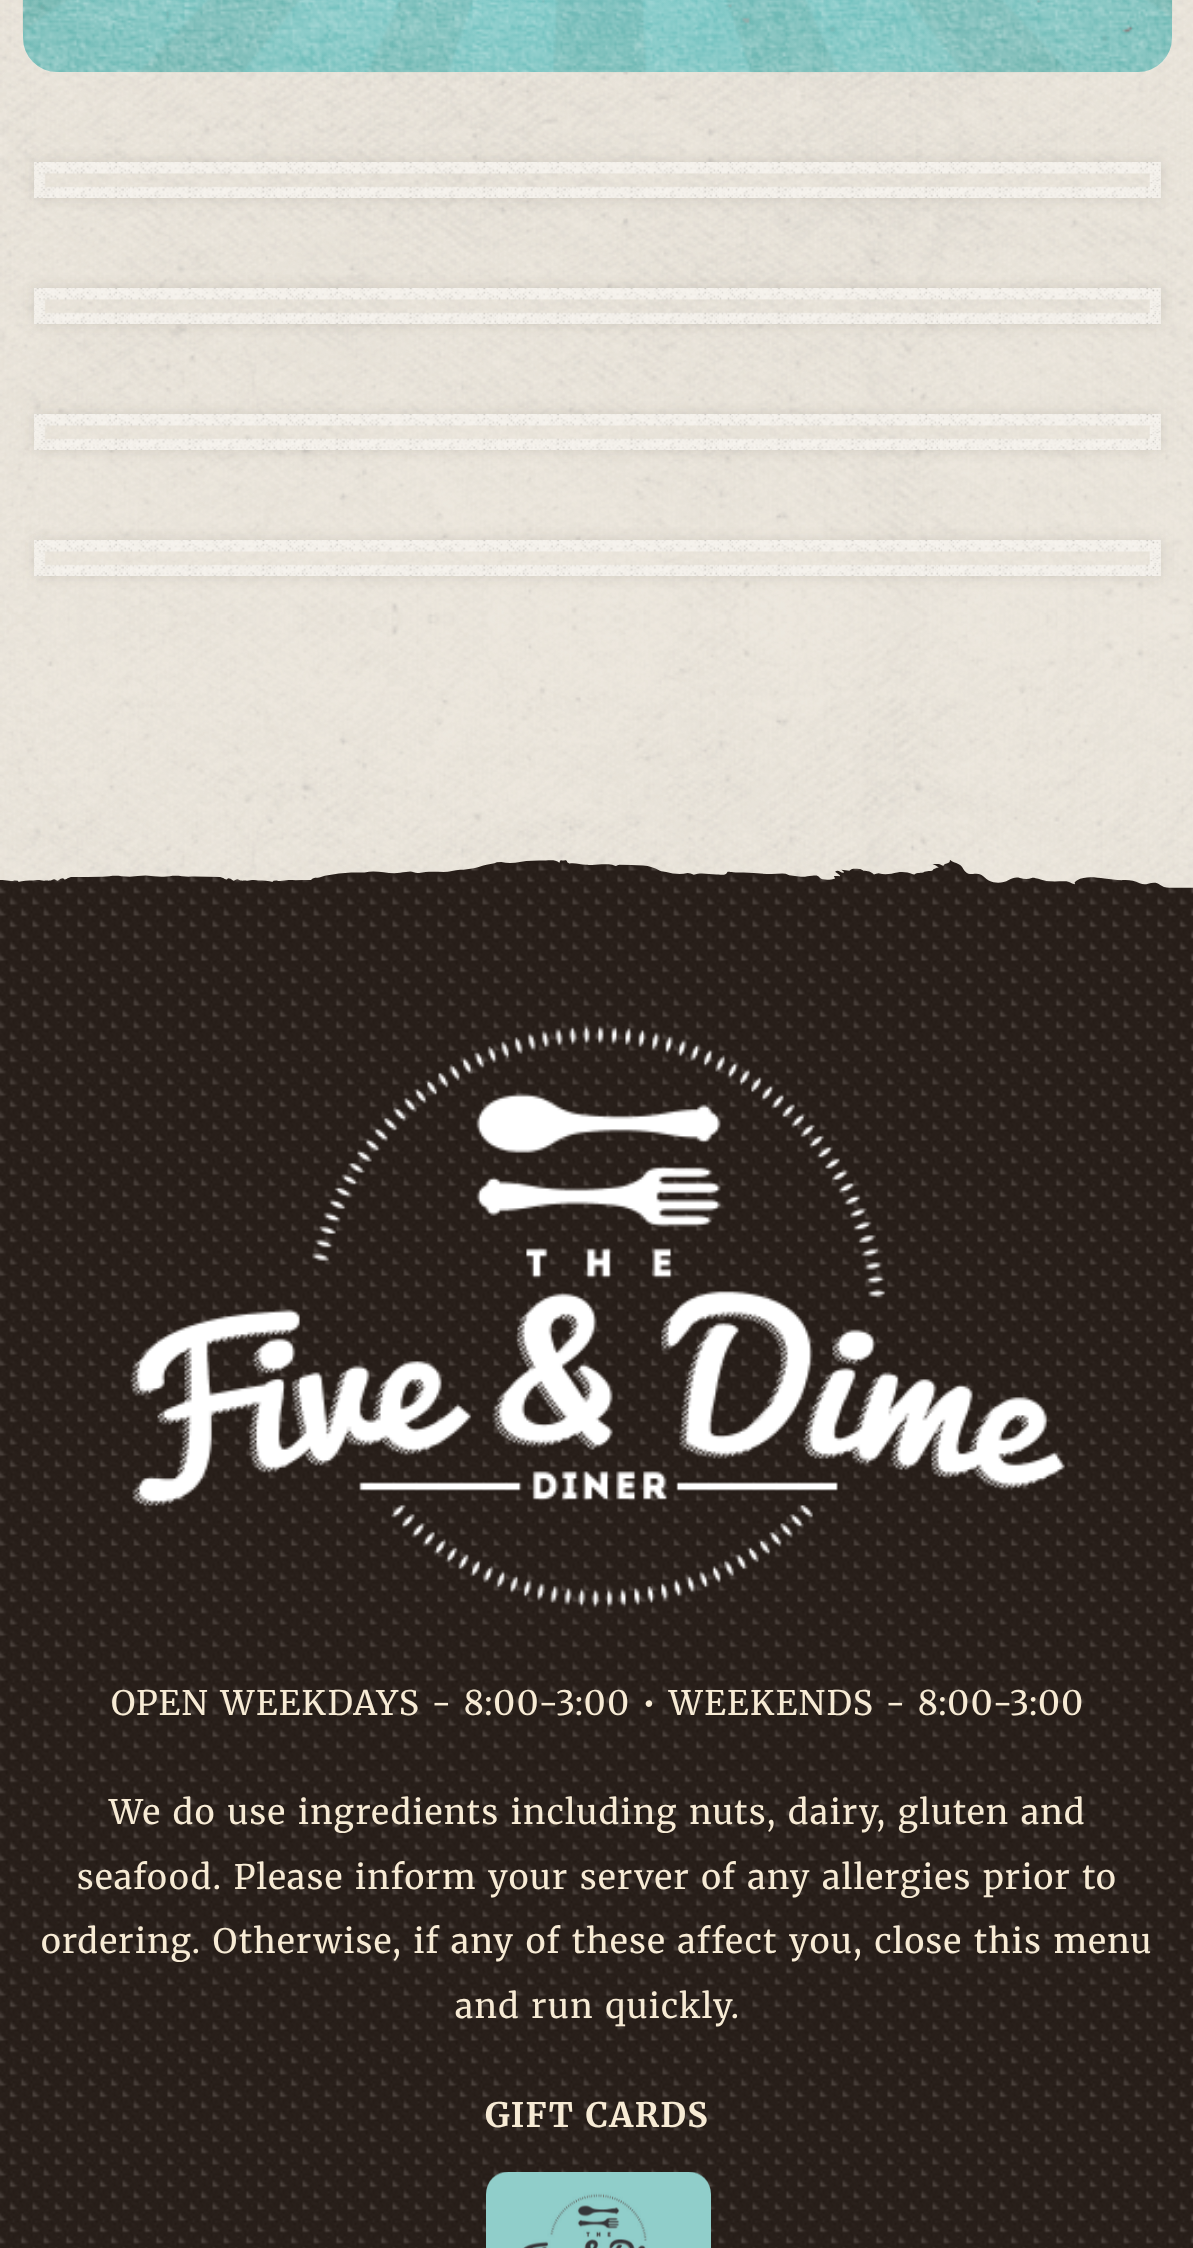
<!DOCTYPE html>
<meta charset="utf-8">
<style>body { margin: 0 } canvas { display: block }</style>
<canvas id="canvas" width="1193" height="2248"></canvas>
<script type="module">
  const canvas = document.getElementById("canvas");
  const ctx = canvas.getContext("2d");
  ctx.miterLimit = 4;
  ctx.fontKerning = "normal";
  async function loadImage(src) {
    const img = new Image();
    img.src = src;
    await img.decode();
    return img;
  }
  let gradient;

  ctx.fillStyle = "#f7f2e8";
  ctx.fillRect(0, 0, 1193, 2248);
  ctx.drawImage(await loadImage("img1.png"), 0, 0, 1193, 888);
  gradient = ctx.createRadialGradient(597, -486.83, 0, 597, -486.83, 813);
  gradient.addColorStop(0, "#81d8db");
  gradient.addColorStop(1, "#6eb8b3");
  ctx.fillStyle = gradient;
  ctx.beginPath();
  ctx.roundRect(23, -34, 1149, 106, 34);
  ctx.save();
  ctx.clip();
  ctx.scale(1, 668 / 813);
  ctx.fillRect(0, 0, 1193, 2736);
  ctx.restore();
  ctx.drawImage(await loadImage("img3.png"), 22, 0, 1151, 73);
  ctx.drawImage(await loadImage("img2.png"), 23, 0, 1149, 72);
  ctx.save();
  ctx.beginPath();
  ctx.moveTo(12, 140);
  ctx.lineTo(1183, 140);
  ctx.lineTo(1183, 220);
  ctx.lineTo(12, 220);
  ctx.closePath();
  ctx.moveTo(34, 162);
  ctx.lineTo(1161, 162);
  ctx.lineTo(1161, 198);
  ctx.lineTo(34, 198);
  ctx.closePath();
  ctx.clip("evenodd");
  ctx.fillStyle = "rgba(40, 30, 26, 0.12)";
  ctx.filter = "blur(7px)";
  ctx.beginPath();
  ctx.rect(34, 162, 1127, 36);
  ctx.fill();
  ctx.filter = "none";
  ctx.restore();
  ctx.drawImage(await loadImage("img4.png"), 34, 162, 1127, 36);
  ctx.save();
  ctx.beginPath();
  ctx.moveTo(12, 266);
  ctx.lineTo(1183, 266);
  ctx.lineTo(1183, 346);
  ctx.lineTo(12, 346);
  ctx.closePath();
  ctx.moveTo(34, 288);
  ctx.lineTo(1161, 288);
  ctx.lineTo(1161, 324);
  ctx.lineTo(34, 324);
  ctx.closePath();
  ctx.clip("evenodd");
  ctx.fillStyle = "rgba(40, 30, 26, 0.12)";
  ctx.filter = "blur(7px)";
  ctx.beginPath();
  ctx.rect(34, 288, 1127, 36);
  ctx.fill();
  ctx.filter = "none";
  ctx.restore();
  ctx.drawImage(await loadImage("img5.png"), 34, 288, 1127, 36);
  ctx.save();
  ctx.beginPath();
  ctx.moveTo(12, 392);
  ctx.lineTo(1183, 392);
  ctx.lineTo(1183, 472);
  ctx.lineTo(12, 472);
  ctx.closePath();
  ctx.moveTo(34, 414);
  ctx.lineTo(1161, 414);
  ctx.lineTo(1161, 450);
  ctx.lineTo(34, 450);
  ctx.closePath();
  ctx.clip("evenodd");
  ctx.fillStyle = "rgba(40, 30, 26, 0.12)";
  ctx.filter = "blur(7px)";
  ctx.beginPath();
  ctx.rect(34, 414, 1127, 36);
  ctx.fill();
  ctx.filter = "none";
  ctx.restore();
  ctx.drawImage(await loadImage("img6.png"), 34, 414, 1127, 36);
  ctx.save();
  ctx.beginPath();
  ctx.moveTo(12, 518);
  ctx.lineTo(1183, 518);
  ctx.lineTo(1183, 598);
  ctx.lineTo(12, 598);
  ctx.closePath();
  ctx.moveTo(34, 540);
  ctx.lineTo(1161, 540);
  ctx.lineTo(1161, 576);
  ctx.lineTo(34, 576);
  ctx.closePath();
  ctx.clip("evenodd");
  ctx.fillStyle = "rgba(40, 30, 26, 0.12)";
  ctx.filter = "blur(7px)";
  ctx.beginPath();
  ctx.rect(34, 540, 1127, 36);
  ctx.fill();
  ctx.filter = "none";
  ctx.restore();
  ctx.drawImage(await loadImage("img7.png"), 34, 540, 1127, 36);
  ctx.drawImage(await loadImage("img8.png"), 0, 860, 1193, 1388);
  ctx.drawImage(await loadImage("img9.png"), 130, 1025, 935, 583);
  ctx.letterSpacing = "1.35px";
  ctx.wordSpacing = "2px";
  ctx.font = "33.75px Merriweather";
  ctx.fillStyle = "#f7ebd5";
  ctx.fillText("OPEN WEEKDAYS - 8:00-3:00 • WEEKENDS - 8:00-3:00", 111, 1715);
  ctx.fillText("We do use ingredients including nuts, dairy, gluten and", 109, 1824);
  ctx.fillText("seafood. Please inform your server of any allergies prior to", 77, 1889);
  ctx.fillText("ordering. Otherwise, if any of these affect you, close this menu", 41, 1953);
  ctx.fillText("and run quickly.", 455, 2018);
  ctx.font = "bold 33.75px Merriweather";
  ctx.fillText("GIFT CARDS", 485, 2127);
  ctx.drawImage(await loadImage("img10.png"), 486, 2172, 225, 76);
</script>
